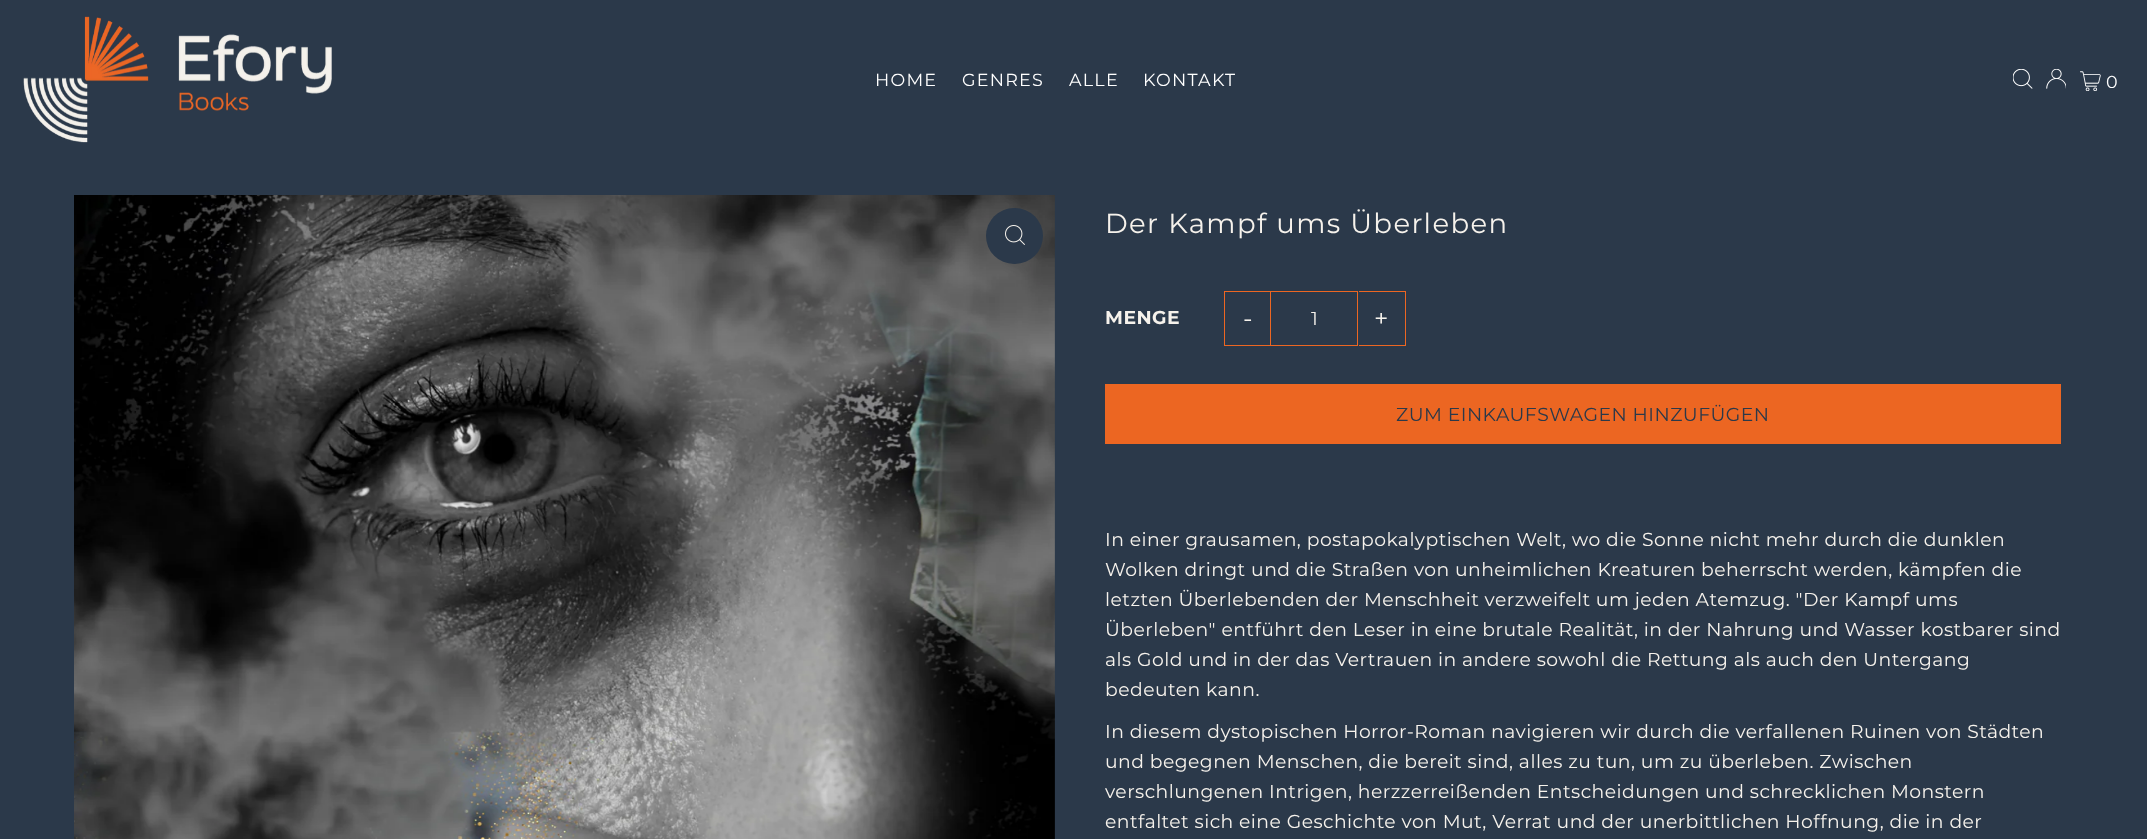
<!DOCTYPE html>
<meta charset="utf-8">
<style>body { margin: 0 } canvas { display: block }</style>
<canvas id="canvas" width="2147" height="839"></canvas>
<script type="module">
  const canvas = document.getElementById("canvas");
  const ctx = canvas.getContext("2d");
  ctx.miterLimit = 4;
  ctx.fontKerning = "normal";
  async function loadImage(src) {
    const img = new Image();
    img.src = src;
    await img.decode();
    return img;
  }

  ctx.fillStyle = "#2b394a";
  ctx.fillRect(0, 0, 2147, 839);
  ctx.drawImage(await loadImage("img1.png"), 23, 16, 309, 127);
  ctx.letterSpacing = "1.25px";
  ctx.font = "17.5px Montserrat";
  ctx.fillStyle = "#ffffff";
  ctx.fillText("HOME", 875, 86);
  ctx.fillText("GENRES", 962, 86);
  ctx.fillText("ALLE", 1069, 86);
  ctx.fillText("KONTAKT", 1143, 86);
  ctx.drawImage(await loadImage("img2.png"), 2013, 69, 20, 20);
  ctx.drawImage(await loadImage("img3.png"), 2046, 69, 20, 20);
  ctx.drawImage(await loadImage("img4.png"), 2080, 71, 21, 20);
  ctx.letterSpacing = "0.47px";
  ctx.fillText("0", 2106, 88);
  ctx.drawImage(await loadImage("img5.png"), 74, 195, 981, 644);
  ctx.fillStyle = "#2b394a";
  ctx.beginPath();
  ctx.roundRect(986, 208, 57, 56, 28);
  ctx.fill();
  ctx.drawImage(await loadImage("img6.png"), 1005, 225, 20, 20);
  ctx.letterSpacing = "1.4px";
  ctx.font = "27.5px Montserrat";
  ctx.fillStyle = "#f6f2ec";
  ctx.fillText("Der Kampf ums Überleben", 1105, 233);
  ctx.letterSpacing = "0.47px";
  ctx.font = "bold 18.75px Montserrat";
  ctx.fillText("MENGE", 1105, 324);
  ctx.fillStyle = "#ec6622";
  ctx.fillRect(1224, 291, 47, 1);
  ctx.fillRect(1224, 345, 47, 1);
  ctx.fillRect(1224, 291, 1, 55);
  ctx.letterSpacing = "1px";
  ctx.font = "25px Montserrat";
  ctx.fillStyle = "#f6f2ec";
  ctx.fillText("-", 1243, 327);
  ctx.strokeStyle = "#ec6622";
  ctx.strokeRect(1270.5, 291.5, 87, 54);
  ctx.letterSpacing = "0.47px";
  ctx.font = "18.75px Montserrat";
  ctx.fillText("1", 1311, 325);
  ctx.fillStyle = "#ec6622";
  ctx.fillRect(1359, 291, 47, 1);
  ctx.fillRect(1405, 291, 1, 55);
  ctx.fillRect(1359, 345, 47, 1);
  ctx.letterSpacing = "1px";
  ctx.font = "25px Montserrat";
  ctx.fillStyle = "#f6f2ec";
  ctx.fillText("+", 1374, 327);
  ctx.fillStyle = "#ec6622";
  ctx.fillRect(1105, 384, 956, 60);
  ctx.letterSpacing = "0.47px";
  ctx.font = "18.75px Montserrat";
  ctx.fillStyle = "#2b394a";
  ctx.fillText("ZUM EINKAUFSWAGEN HINZUFÜGEN", 1396, 421);
  ctx.fillStyle = "#f6f2ec";
  ctx.fillText("In einer grausamen, postapokalyptischen Welt, wo die Sonne nicht mehr durch die dunklen", 1105, 546);
  ctx.fillText("Wolken dringt und die Straßen von unheimlichen Kreaturen beherrscht werden, kämpfen die", 1105, 576);
  ctx.fillText("letzten Überlebenden der Menschheit verzweifelt um jeden Atemzug. \"Der Kampf ums", 1105, 606);
  ctx.fillText("Überleben\" entführt den Leser in eine brutale Realität, in der Nahrung und Wasser kostbarer sind", 1105, 636);
  ctx.fillText("als Gold und in der das Vertrauen in andere sowohl die Rettung als auch den Untergang", 1105, 666);
  ctx.fillText("bedeuten kann.", 1105, 696);
  ctx.fillText("In diesem dystopischen Horror-Roman navigieren wir durch die verfallenen Ruinen von Städten", 1105, 738);
  ctx.fillText("und begegnen Menschen, die bereit sind, alles zu tun, um zu überleben. Zwischen", 1105, 768);
  ctx.fillText("verschlungenen Intrigen, herzzerreißenden Entscheidungen und schrecklichen Monstern", 1105, 798);
  ctx.fillText("entfaltet sich eine Geschichte von Mut, Verrat und der unerbittlichen Hoffnung, die in der", 1105, 828);
</script>
